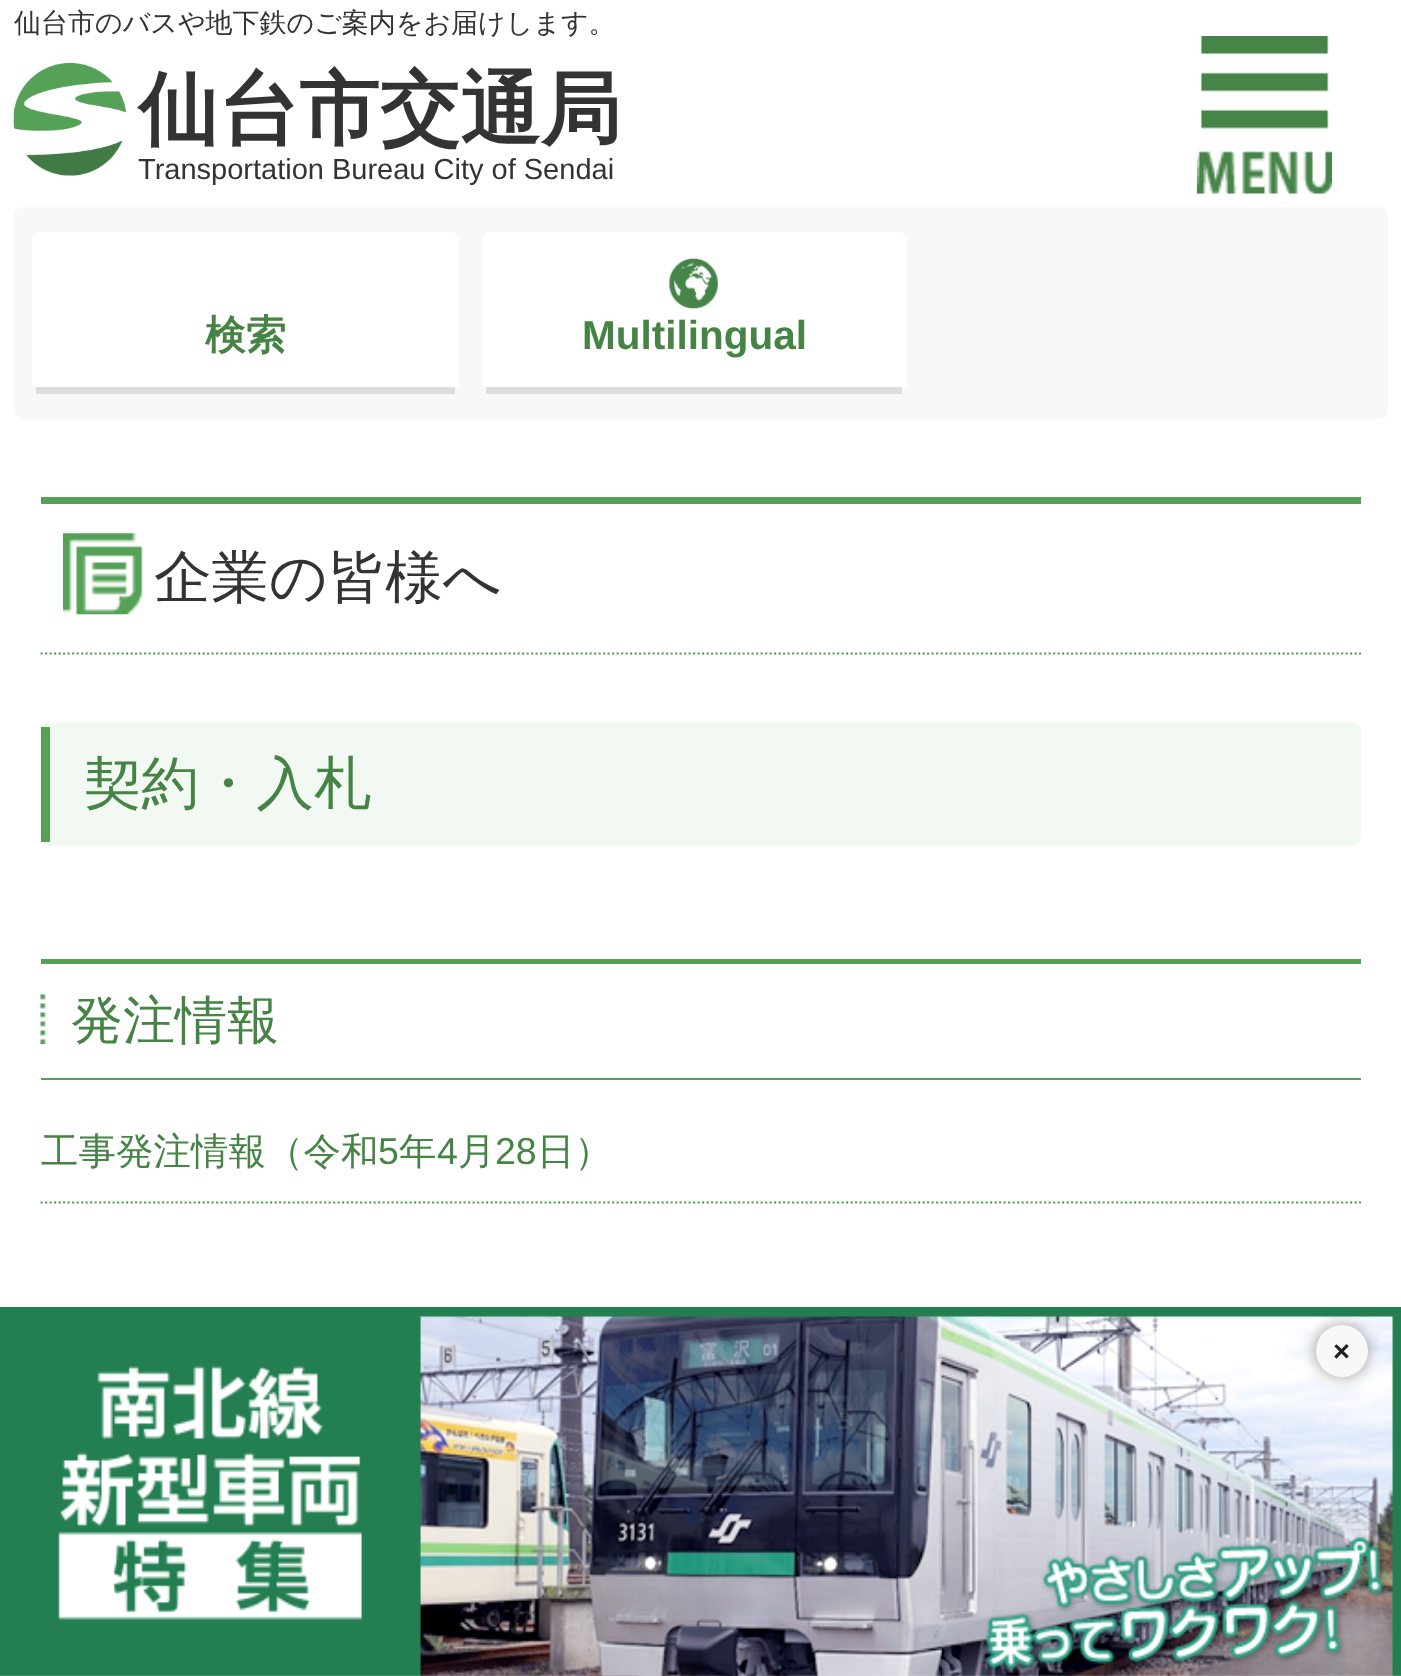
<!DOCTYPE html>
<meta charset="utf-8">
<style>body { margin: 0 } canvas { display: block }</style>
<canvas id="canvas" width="1401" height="1676"></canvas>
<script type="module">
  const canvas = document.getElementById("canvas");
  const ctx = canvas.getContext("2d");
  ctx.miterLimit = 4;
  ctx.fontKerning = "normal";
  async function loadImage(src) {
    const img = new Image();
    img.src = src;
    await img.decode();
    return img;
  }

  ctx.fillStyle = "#ffffff";
  ctx.fillRect(0, 0, 1401, 1676);
  ctx.font = "500 27px WenQuanYi Zen Hei";
  ctx.fillStyle = "#333333";
  ctx.fillText("仙台市のバスや地下鉄のご案内をお届けします。", 14, 32);
  ctx.drawImage(await loadImage("img1.png"), 13, 63, 113, 113);
  ctx.font = "bold 80.5px WenQuanYi Zen Hei";
  ctx.fillText("仙台市交通局", 138, 137);
  ctx.font = "29px Liberation Sans";
  ctx.fillText("Transportation Bureau City of Sendai", 138, 179);
  ctx.fillStyle = "#f8f8f8";
  ctx.beginPath();
  ctx.roundRect(14, 207, 1374, 212, 9);
  ctx.fill();
  ctx.fillStyle = "#ffffff";
  ctx.beginPath();
  ctx.moveTo(40, 232);
  ctx.lineTo(450, 232);
  ctx.bezierCurveTo(455, 232, 459, 236, 459, 241);
  ctx.lineTo(459, 385);
  ctx.bezierCurveTo(459, 386, 455, 387, 450, 387);
  ctx.lineTo(40, 387);
  ctx.bezierCurveTo(36, 387, 32, 386, 32, 385);
  ctx.lineTo(32, 241);
  ctx.bezierCurveTo(32, 236, 36, 232, 40, 232);
  ctx.closePath();
  ctx.fill();
  ctx.fillStyle = "#dddddd";
  ctx.fillRect(36, 387, 419, 7);
  ctx.font = "bold 40.5px WenQuanYi Zen Hei";
  ctx.fillStyle = "#468446";
  ctx.fillText("検索", 205, 349);
  ctx.fillStyle = "#ffffff";
  ctx.beginPath();
  ctx.moveTo(490, 232);
  ctx.lineTo(898, 232);
  ctx.bezierCurveTo(903, 232, 907, 236, 907, 241);
  ctx.lineTo(907, 385);
  ctx.bezierCurveTo(907, 386, 903, 387, 898, 387);
  ctx.lineTo(490, 387);
  ctx.bezierCurveTo(486, 387, 482, 386, 482, 385);
  ctx.lineTo(482, 241);
  ctx.bezierCurveTo(482, 236, 486, 232, 490, 232);
  ctx.closePath();
  ctx.fill();
  ctx.fillStyle = "#dddddd";
  ctx.fillRect(486, 387, 416, 7);
  ctx.drawImage(await loadImage("img2.png"), 669, 258, 49, 51);
  ctx.font = "bold 40.5px Liberation Sans";
  ctx.fillStyle = "#468446";
  ctx.fillText("Multilingual", 582, 349);
  ctx.drawImage(await loadImage("img3.png"), 1197, 36, 135, 158);
  ctx.drawImage(await loadImage("img4.png"), 63, 533, 80, 82);
  ctx.fillStyle = "#55a158";
  ctx.fillRect(41, 497, 1320, 7);
  ctx.beginPath();
  ctx.moveTo(40.5, 653.5);
  ctx.lineTo(1361, 653.5);
  ctx.strokeStyle = "#55a158";
  ctx.lineWidth = 2.2;
  ctx.setLineDash([2.25, 2.25]);
  ctx.stroke();
  ctx.font = "500 57.5px WenQuanYi Zen Hei";
  ctx.fillStyle = "#333333";
  ctx.fillText("企業の皆様へ", 154, 597);
  ctx.fillStyle = "#f2f8f2";
  ctx.beginPath();
  ctx.roundRect(41, 722, 1320, 124, 9);
  ctx.fill();
  ctx.fillStyle = "#55a158";
  ctx.fillRect(41, 727, 9, 115);
  ctx.fillStyle = "#468446";
  ctx.fillText("契約・入札", 84, 803);
  ctx.drawImage(await loadImage("img5.png"), 40, 994, 6, 50);
  ctx.fillStyle = "#55a158";
  ctx.fillRect(41, 959, 1320, 5);
  ctx.fillRect(41, 1078, 1320, 2);
  ctx.font = "500 52px WenQuanYi Zen Hei";
  ctx.fillStyle = "#468446";
  ctx.fillText("発注情報", 71, 1038);
  ctx.beginPath();
  ctx.moveTo(40.5, 1202.5);
  ctx.lineTo(1361, 1202.5);
  ctx.stroke();
  ctx.font = "500 37.5px WenQuanYi Zen Hei";
  ctx.fillText("工事発注情報（令和", 41, 1164);
  ctx.font = "37.5px Liberation Sans";
  ctx.fillText("5", 378, 1164);
  ctx.font = "500 37.5px WenQuanYi Zen Hei";
  ctx.fillText("年", 399, 1164);
  ctx.font = "37.5px Liberation Sans";
  ctx.fillText("4", 437, 1164);
  ctx.font = "500 37.5px WenQuanYi Zen Hei";
  ctx.fillText("月", 458, 1164);
  ctx.font = "37.5px Liberation Sans";
  ctx.fillText("28", 495, 1164);
  ctx.font = "500 37.5px WenQuanYi Zen Hei";
  ctx.fillText("日）", 537, 1164);
  ctx.drawImage(await loadImage("img6.png"), 573, 1675, 253, 1);
  ctx.drawImage(await loadImage("img7.png"), 0, 1307, 1401, 369);
  ctx.fillStyle = "rgba(0, 0, 0, 0.4)";
  ctx.filter = "blur(8px)";
  ctx.beginPath();
  ctx.roundRect(1316, 1325, 52, 52, 26);
  ctx.fill();
  ctx.filter = "none";
  ctx.fillStyle = "#f8f8f8";
  ctx.beginPath();
  ctx.arc(1342, 1351, 26, 0, Math.PI * 2);
  ctx.fill();
  ctx.font = "bold 29px Liberation Sans";
  ctx.fillStyle = "#222222";
  ctx.fillText("×", 1333, 1361);
</script>
